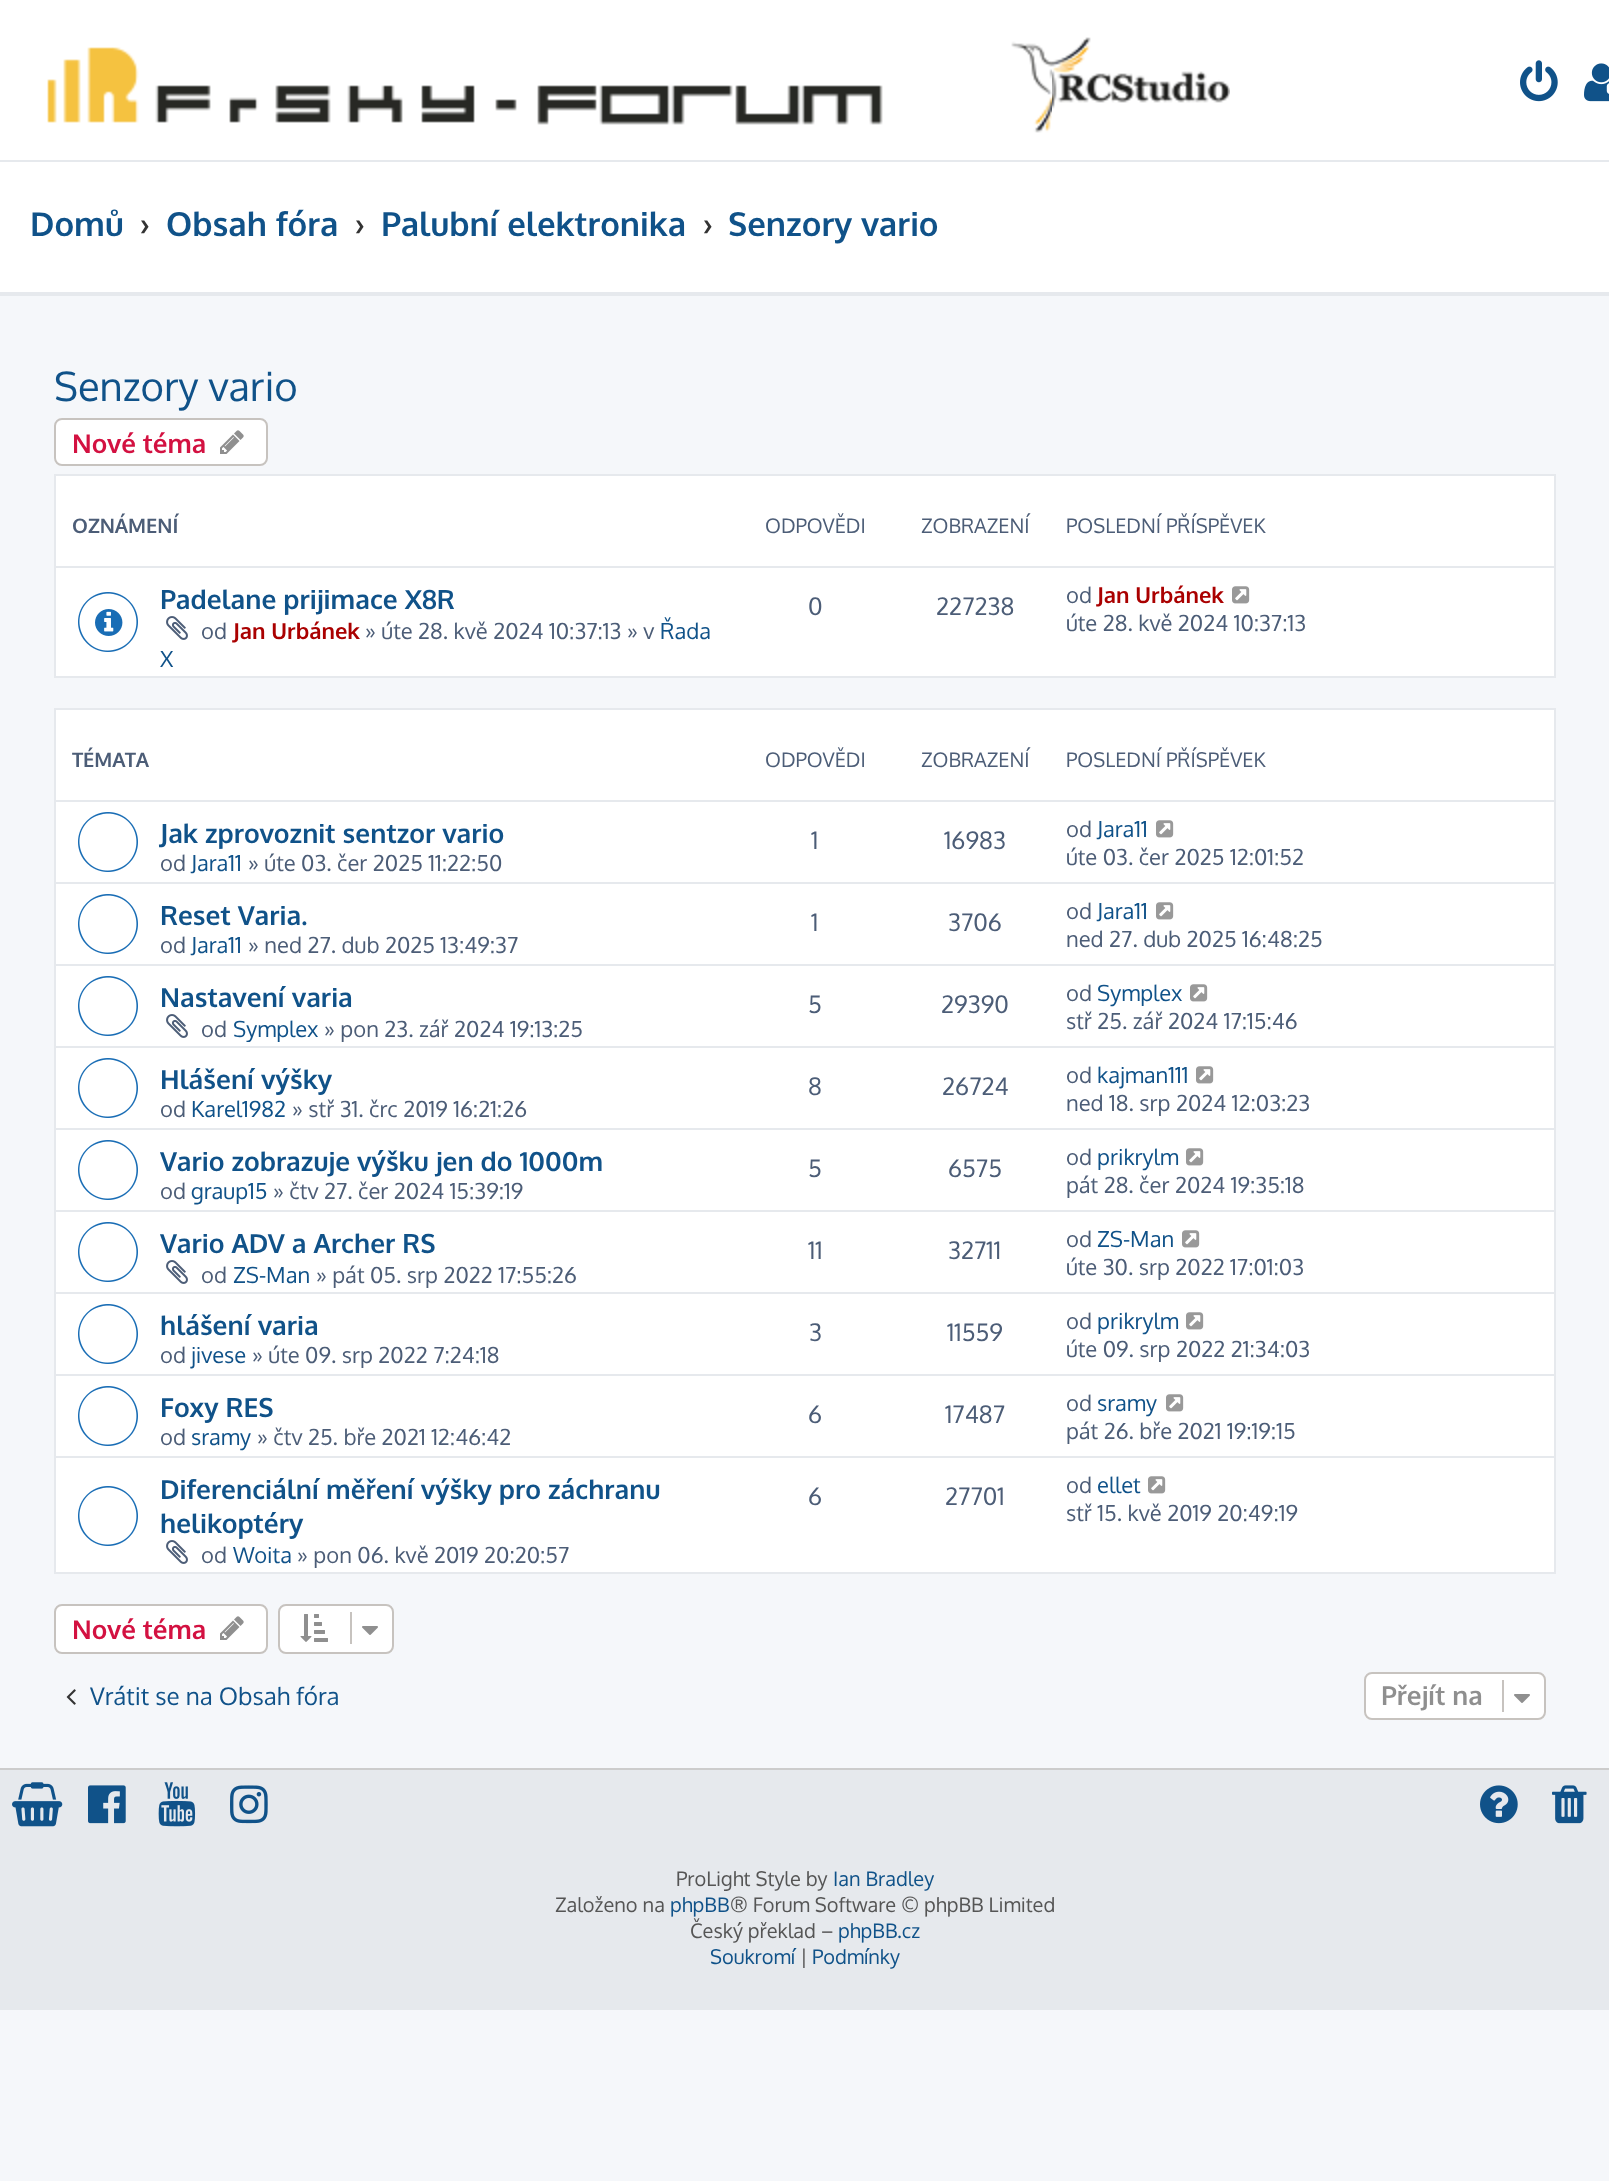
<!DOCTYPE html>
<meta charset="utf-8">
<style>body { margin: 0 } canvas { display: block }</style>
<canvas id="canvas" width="1609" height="2181"></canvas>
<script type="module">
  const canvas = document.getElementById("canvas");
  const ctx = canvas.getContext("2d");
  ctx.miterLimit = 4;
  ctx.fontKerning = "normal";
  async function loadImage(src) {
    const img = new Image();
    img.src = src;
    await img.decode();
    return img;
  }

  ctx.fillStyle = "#f5f7fa";
  ctx.fillRect(0, 0, 1609, 2181);
  ctx.fillStyle = "#ffffff";
  ctx.fillRect(0, 0, 1609, 160);
  ctx.fillStyle = "#e6e9ed";
  ctx.fillRect(0, 160, 1609, 2);
  ctx.drawImage(await loadImage("img1.png"), 47, 37, 1183, 96);
  ctx.drawImage(await loadImage("img2.png"), 1520, 60, 38, 42);
  ctx.drawImage(await loadImage("img3.png"), 1584, 63, 25, 39);
  ctx.fillStyle = "#ffffff";
  ctx.fillRect(0, 162, 1609, 130);
  ctx.fillStyle = "#e6e9ed";
  ctx.fillRect(0, 292, 1609, 4);
  ctx.font = "bold 33px Oxygen";
  ctx.fillStyle = "#105289";
  ctx.fillText("Domů", 30, 236);
  ctx.fillStyle = "#333333";
  ctx.fillText("›", 140, 236);
  ctx.fillStyle = "#105289";
  ctx.fillText("Obsah fóra", 166, 236);
  ctx.fillStyle = "#333333";
  ctx.fillText("›", 355, 236);
  ctx.fillStyle = "#105289";
  ctx.fillText("Palubní elektronika", 381, 236);
  ctx.fillStyle = "#333333";
  ctx.fillText("›", 703, 236);
  ctx.fillStyle = "#105289";
  ctx.fillText("Senzory vario", 728, 236);
  ctx.font = "40px Oxygen";
  ctx.fillText("Senzory vario", 54, 401);
  ctx.fillStyle = "#ffffff";
  ctx.beginPath();
  ctx.roundRect(55, 419, 212, 46, 7);
  ctx.fill();
  ctx.strokeStyle = "#c7c3bf";
  ctx.lineWidth = 2;
  ctx.stroke();
  ctx.font = "bold 26px Oxygen";
  ctx.fillStyle = "#d31141";
  ctx.fillText("Nové téma", 72, 453);
  ctx.drawImage(await loadImage("img4.png"), 220, 430, 24, 24);
  ctx.fillStyle = "#ffffff";
  ctx.beginPath();
  ctx.rect(55, 475, 1500, 202);
  ctx.fill();
  ctx.strokeStyle = "#e6e9ed";
  ctx.stroke();
  ctx.font = "bold 20px Oxygen";
  ctx.fillStyle = "#4c5d77";
  ctx.fillText("OZNÁMENÍ", 72, 533);
  ctx.font = "20px Oxygen";
  ctx.fillText("ODPOVĚDI", 765, 533);
  ctx.fillText("ZOBRAZENÍ", 921, 533);
  ctx.fillText("POSLEDNÍ PŘÍSPĚVEK", 1066, 533);
  ctx.fillStyle = "#e6e9ed";
  ctx.fillRect(56, 566, 1498, 2);
  ctx.drawImage(await loadImage("img5.png"), 78, 592, 60, 60);
  ctx.font = "bold 26.4px Oxygen";
  ctx.fillStyle = "#105289";
  ctx.fillText("Padelane prijimace X8R", 160, 609);
  ctx.drawImage(await loadImage("img6.png"), 166, 616, 22, 24);
  ctx.font = "22px Oxygen";
  ctx.fillStyle = "#4c5d77";
  ctx.fillText("od", 201, 639);
  ctx.font = "bold 22px Oxygen";
  ctx.fillStyle = "#aa0000";
  ctx.fillText("Jan Urbánek", 233, 639);
  ctx.font = "22px Oxygen";
  ctx.fillStyle = "#4c5d77";
  ctx.fillText("» úte 28. kvě 2024 10:37:13 » v", 365, 639);
  ctx.fillStyle = "#105289";
  ctx.fillText("Řada", 660, 639);
  ctx.fillText("X", 160, 667);
  ctx.font = "24px Oxygen";
  ctx.fillStyle = "#4c5d77";
  ctx.fillText("0", 808, 615);
  ctx.fillText("227238", 936, 615);
  ctx.font = "22px Oxygen";
  ctx.fillText("od", 1066, 603);
  ctx.font = "bold 22px Oxygen";
  ctx.fillStyle = "#aa0000";
  ctx.fillText("Jan Urbánek", 1097, 603);
  ctx.drawImage(await loadImage("img7.png"), 1232, 586, 18, 18);
  ctx.font = "22px Oxygen";
  ctx.fillStyle = "#4c5d77";
  ctx.fillText("úte 28. kvě 2024 10:37:13", 1066, 631);
  ctx.fillStyle = "#ffffff";
  ctx.beginPath();
  ctx.rect(55, 709, 1500, 864);
  ctx.fill();
  ctx.stroke();
  ctx.font = "bold 20px Oxygen";
  ctx.fillStyle = "#4c5d77";
  ctx.fillText("TÉMATA", 72, 767);
  ctx.font = "20px Oxygen";
  ctx.fillText("ODPOVĚDI", 765, 767);
  ctx.fillText("ZOBRAZENÍ", 921, 767);
  ctx.fillText("POSLEDNÍ PŘÍSPĚVEK", 1066, 767);
  ctx.fillStyle = "#e6e9ed";
  ctx.fillRect(56, 800, 1498, 2);
  ctx.drawImage(await loadImage("img8.png"), 78, 812, 60, 60);
  ctx.font = "bold 26.4px Oxygen";
  ctx.fillStyle = "#105289";
  ctx.fillText("Jak zprovoznit sentzor vario", 160, 843);
  ctx.font = "22px Oxygen";
  ctx.fillStyle = "#4c5d77";
  ctx.fillText("od", 160, 871);
  ctx.fillStyle = "#105289";
  ctx.fillText("Jara11", 191, 871);
  ctx.fillStyle = "#4c5d77";
  ctx.fillText("» úte 03. čer 2025 11:22:50", 248, 871);
  ctx.font = "24px Oxygen";
  ctx.fillText("1", 811, 849);
  ctx.fillText("16983", 944, 849);
  ctx.font = "22px Oxygen";
  ctx.fillText("od", 1066, 837);
  ctx.fillStyle = "#105289";
  ctx.fillText("Jara11", 1097, 837);
  ctx.drawImage(await loadImage("img7.png"), 1156, 820, 18, 18);
  ctx.fillStyle = "#4c5d77";
  ctx.fillText("úte 03. čer 2025 12:01:52", 1066, 865);
  ctx.fillStyle = "#e6e9ed";
  ctx.fillRect(56, 882, 1498, 2);
  ctx.drawImage(await loadImage("img8.png"), 78, 894, 60, 60);
  ctx.font = "bold 26.4px Oxygen";
  ctx.fillStyle = "#105289";
  ctx.fillText("Reset Varia.", 160, 925);
  ctx.font = "22px Oxygen";
  ctx.fillStyle = "#4c5d77";
  ctx.fillText("od", 160, 953);
  ctx.fillStyle = "#105289";
  ctx.fillText("Jara11", 191, 953);
  ctx.fillStyle = "#4c5d77";
  ctx.fillText("» ned 27. dub 2025 13:49:37", 248, 953);
  ctx.font = "24px Oxygen";
  ctx.fillText("1", 811, 931);
  ctx.fillText("3706", 948, 931);
  ctx.font = "22px Oxygen";
  ctx.fillText("od", 1066, 919);
  ctx.fillStyle = "#105289";
  ctx.fillText("Jara11", 1097, 919);
  ctx.drawImage(await loadImage("img7.png"), 1156, 902, 18, 18);
  ctx.fillStyle = "#4c5d77";
  ctx.fillText("ned 27. dub 2025 16:48:25", 1066, 947);
  ctx.fillStyle = "#e6e9ed";
  ctx.fillRect(56, 964, 1498, 2);
  ctx.drawImage(await loadImage("img8.png"), 78, 976, 60, 60);
  ctx.font = "bold 26.4px Oxygen";
  ctx.fillStyle = "#105289";
  ctx.fillText("Nastavení varia", 160, 1007);
  ctx.drawImage(await loadImage("img6.png"), 166, 1014, 22, 24);
  ctx.font = "22px Oxygen";
  ctx.fillStyle = "#4c5d77";
  ctx.fillText("od", 201, 1037);
  ctx.save();
  ctx.beginPath();
  ctx.rect(56, 970, 1498, 72);
  ctx.clip();
  ctx.fillStyle = "#105289";
  ctx.fillText("Symplex", 233, 1037);
  ctx.restore();
  ctx.fillText("» pon 23. zář 2024 19:13:25", 324, 1037);
  ctx.font = "24px Oxygen";
  ctx.fillText("5", 808, 1013);
  ctx.fillText("29390", 941, 1013);
  ctx.font = "22px Oxygen";
  ctx.fillText("od", 1066, 1001);
  ctx.fillStyle = "#105289";
  ctx.fillText("Symplex", 1097, 1001);
  ctx.drawImage(await loadImage("img7.png"), 1190, 984, 18, 18);
  ctx.fillStyle = "#4c5d77";
  ctx.fillText("stř 25. zář 2024 17:15:46", 1066, 1029);
  ctx.fillStyle = "#e6e9ed";
  ctx.fillRect(56, 1046, 1498, 2);
  ctx.drawImage(await loadImage("img8.png"), 78, 1058, 60, 60);
  ctx.font = "bold 26.4px Oxygen";
  ctx.fillStyle = "#105289";
  ctx.fillText("Hlášení výšky", 160, 1089);
  ctx.font = "22px Oxygen";
  ctx.fillStyle = "#4c5d77";
  ctx.fillText("od", 160, 1117);
  ctx.fillStyle = "#105289";
  ctx.fillText("Karel1982", 191, 1117);
  ctx.fillStyle = "#4c5d77";
  ctx.fillText("» stř 31. črc 2019 16:21:26", 292, 1117);
  ctx.font = "24px Oxygen";
  ctx.fillText("8", 808, 1095);
  ctx.fillText("26724", 942, 1095);
  ctx.font = "22px Oxygen";
  ctx.fillText("od", 1066, 1083);
  ctx.fillStyle = "#105289";
  ctx.fillText("kajman111", 1097, 1083);
  ctx.drawImage(await loadImage("img7.png"), 1196, 1066, 18, 18);
  ctx.fillStyle = "#4c5d77";
  ctx.fillText("ned 18. srp 2024 12:03:23", 1066, 1111);
  ctx.fillStyle = "#e6e9ed";
  ctx.fillRect(56, 1128, 1498, 2);
  ctx.drawImage(await loadImage("img8.png"), 78, 1140, 60, 60);
  ctx.font = "bold 26.4px Oxygen";
  ctx.fillStyle = "#105289";
  ctx.fillText("Vario zobrazuje výšku jen do 1000m", 160, 1171);
  ctx.font = "22px Oxygen";
  ctx.fillStyle = "#4c5d77";
  ctx.fillText("od", 160, 1199);
  ctx.fillStyle = "#105289";
  ctx.fillText("graup15", 191, 1199);
  ctx.fillStyle = "#4c5d77";
  ctx.fillText("» čtv 27. čer 2024 15:39:19", 273, 1199);
  ctx.font = "24px Oxygen";
  ctx.fillText("5", 808, 1177);
  ctx.fillText("6575", 948, 1177);
  ctx.font = "22px Oxygen";
  ctx.fillText("od", 1066, 1165);
  ctx.fillStyle = "#105289";
  ctx.fillText("prikrylm", 1097, 1165);
  ctx.drawImage(await loadImage("img7.png"), 1186, 1148, 18, 18);
  ctx.fillStyle = "#4c5d77";
  ctx.fillText("pát 28. čer 2024 19:35:18", 1066, 1193);
  ctx.fillStyle = "#e6e9ed";
  ctx.fillRect(56, 1210, 1498, 2);
  ctx.drawImage(await loadImage("img8.png"), 78, 1222, 60, 60);
  ctx.font = "bold 26.4px Oxygen";
  ctx.fillStyle = "#105289";
  ctx.fillText("Vario ADV a Archer RS", 160, 1253);
  ctx.drawImage(await loadImage("img6.png"), 166, 1260, 22, 24);
  ctx.font = "22px Oxygen";
  ctx.fillStyle = "#4c5d77";
  ctx.fillText("od", 201, 1283);
  ctx.fillStyle = "#105289";
  ctx.fillText("ZS-Man", 233, 1283);
  ctx.fillStyle = "#4c5d77";
  ctx.fillText("» pát 05. srp 2022 17:55:26", 316, 1283);
  ctx.font = "24px Oxygen";
  ctx.fillText("11", 808, 1259);
  ctx.fillText("32711", 948, 1259);
  ctx.font = "22px Oxygen";
  ctx.fillText("od", 1066, 1247);
  ctx.fillStyle = "#105289";
  ctx.fillText("ZS-Man", 1097, 1247);
  ctx.drawImage(await loadImage("img7.png"), 1182, 1230, 18, 18);
  ctx.fillStyle = "#4c5d77";
  ctx.fillText("úte 30. srp 2022 17:01:03", 1066, 1275);
  ctx.fillStyle = "#e6e9ed";
  ctx.fillRect(56, 1292, 1498, 2);
  ctx.drawImage(await loadImage("img8.png"), 78, 1304, 60, 60);
  ctx.font = "bold 26.4px Oxygen";
  ctx.fillStyle = "#105289";
  ctx.fillText("hlášení varia", 160, 1335);
  ctx.font = "22px Oxygen";
  ctx.fillStyle = "#4c5d77";
  ctx.fillText("od", 160, 1363);
  ctx.fillStyle = "#105289";
  ctx.fillText("jivese", 191, 1363);
  ctx.fillStyle = "#4c5d77";
  ctx.fillText("» úte 09. srp 2022 7:24:18", 252, 1363);
  ctx.font = "24px Oxygen";
  ctx.fillText("3", 809, 1341);
  ctx.fillText("11559", 947, 1341);
  ctx.font = "22px Oxygen";
  ctx.fillText("od", 1066, 1329);
  ctx.fillStyle = "#105289";
  ctx.fillText("prikrylm", 1097, 1329);
  ctx.drawImage(await loadImage("img7.png"), 1186, 1312, 18, 18);
  ctx.fillStyle = "#4c5d77";
  ctx.fillText("úte 09. srp 2022 21:34:03", 1066, 1357);
  ctx.fillStyle = "#e6e9ed";
  ctx.fillRect(56, 1374, 1498, 2);
  ctx.drawImage(await loadImage("img8.png"), 78, 1386, 60, 60);
  ctx.font = "bold 26.4px Oxygen";
  ctx.fillStyle = "#105289";
  ctx.fillText("Foxy RES", 160, 1417);
  ctx.font = "22px Oxygen";
  ctx.fillStyle = "#4c5d77";
  ctx.fillText("od", 160, 1445);
  ctx.fillStyle = "#105289";
  ctx.fillText("sramy", 191, 1445);
  ctx.fillStyle = "#4c5d77";
  ctx.fillText("» čtv 25. bře 2021 12:46:42", 257, 1445);
  ctx.font = "24px Oxygen";
  ctx.fillText("6", 808, 1423);
  ctx.fillText("17487", 945, 1423);
  ctx.font = "22px Oxygen";
  ctx.fillText("od", 1066, 1411);
  ctx.fillStyle = "#105289";
  ctx.fillText("sramy", 1097, 1411);
  ctx.drawImage(await loadImage("img7.png"), 1166, 1394, 18, 18);
  ctx.fillStyle = "#4c5d77";
  ctx.fillText("pát 26. bře 2021 19:19:15", 1066, 1439);
  ctx.fillStyle = "#e6e9ed";
  ctx.fillRect(56, 1456, 1498, 2);
  ctx.drawImage(await loadImage("img8.png"), 78, 1486, 60, 60);
  ctx.font = "bold 26.4px Oxygen";
  ctx.fillStyle = "#105289";
  ctx.fillText("Diferenciální měření výšky pro záchranu", 160, 1499);
  ctx.fillText("helikoptéry", 160, 1533);
  ctx.drawImage(await loadImage("img6.png"), 166, 1540, 22, 24);
  ctx.font = "22px Oxygen";
  ctx.fillStyle = "#4c5d77";
  ctx.fillText("od", 201, 1563);
  ctx.fillStyle = "#105289";
  ctx.fillText("Woita", 233, 1563);
  ctx.fillStyle = "#4c5d77";
  ctx.fillText("» pon 06. kvě 2019 20:20:57", 297, 1563);
  ctx.font = "24px Oxygen";
  ctx.fillText("6", 808, 1505);
  ctx.fillText("27701", 945, 1505);
  ctx.font = "22px Oxygen";
  ctx.fillText("od", 1066, 1493);
  ctx.fillStyle = "#105289";
  ctx.fillText("ellet", 1097, 1493);
  ctx.drawImage(await loadImage("img7.png"), 1148, 1476, 18, 18);
  ctx.fillStyle = "#4c5d77";
  ctx.fillText("stř 15. kvě 2019 20:49:19", 1066, 1521);
  ctx.fillStyle = "#ffffff";
  ctx.beginPath();
  ctx.roundRect(55, 1605, 212, 48, 7);
  ctx.fill();
  ctx.strokeStyle = "#c7c3bf";
  ctx.stroke();
  ctx.font = "bold 26px Oxygen";
  ctx.fillStyle = "#d31141";
  ctx.fillText("Nové téma", 72, 1639);
  ctx.drawImage(await loadImage("img4.png"), 220, 1616, 24, 24);
  ctx.fillStyle = "#ffffff";
  ctx.beginPath();
  ctx.roundRect(279, 1605, 114, 48, 7);
  ctx.fill();
  ctx.stroke();
  ctx.drawImage(await loadImage("img9.png"), 300, 1614, 28, 28);
  ctx.fillStyle = "#c7c3bf";
  ctx.fillRect(350, 1612, 2, 32);
  ctx.drawImage(await loadImage("img10.png"), 362, 1626, 16, 9);
  ctx.drawImage(await loadImage("img11.png"), 66, 1689, 10, 16);
  ctx.font = "24.25px Oxygen";
  ctx.fillStyle = "#105289";
  ctx.fillText("Vrátit se na Obsah fóra", 90, 1705);
  ctx.fillStyle = "#ffffff";
  ctx.beginPath();
  ctx.roundRect(1365, 1673, 180, 46, 7);
  ctx.fill();
  ctx.stroke();
  ctx.font = "bold 26px Oxygen";
  ctx.fillStyle = "#8f8f8f";
  ctx.fillText("Přejít na", 1381, 1705);
  ctx.fillStyle = "#c7c3bf";
  ctx.fillRect(1502, 1680, 2, 32);
  ctx.drawImage(await loadImage("img10.png"), 1514, 1694, 16, 9);
  ctx.fillStyle = "#e6e9ed";
  ctx.fillRect(0, 1770, 1609, 240);
  ctx.fillStyle = "#cccccc";
  ctx.fillRect(0, 1768, 1609, 2);
  ctx.drawImage(await loadImage("img12.png"), 12, 1782, 51, 45);
  ctx.drawImage(await loadImage("img13.png"), 88, 1785, 38, 39);
  ctx.drawImage(await loadImage("img14.png"), 158, 1782, 38, 45);
  ctx.drawImage(await loadImage("img15.png"), 230, 1785, 38, 39);
  ctx.drawImage(await loadImage("img16.png"), 1480, 1785, 38, 39);
  ctx.drawImage(await loadImage("img17.png"), 1552, 1785, 35, 39);
  ctx.font = "20px Oxygen";
  ctx.fillStyle = "#555555";
  ctx.fillText("ProLight Style by", 676, 1886);
  ctx.fillStyle = "#105289";
  ctx.fillText("Ian Bradley", 833, 1886);
  ctx.fillStyle = "#555555";
  ctx.fillText("Založeno na", 555, 1912);
  ctx.fillStyle = "#105289";
  ctx.fillText("phpBB", 670, 1912);
  ctx.fillStyle = "#555555";
  ctx.fillText("® Forum Software © phpBB Limited", 730, 1912);
  ctx.fillText("Český překlad –", 690, 1938);
  ctx.fillStyle = "#105289";
  ctx.fillText("phpBB.cz", 838, 1938);
  ctx.fillText("Soukromí", 710, 1964);
  ctx.fillStyle = "#555555";
  ctx.fillText("|", 800, 1964);
  ctx.fillStyle = "#105289";
  ctx.fillText("Podmínky", 812, 1964);
</script>
